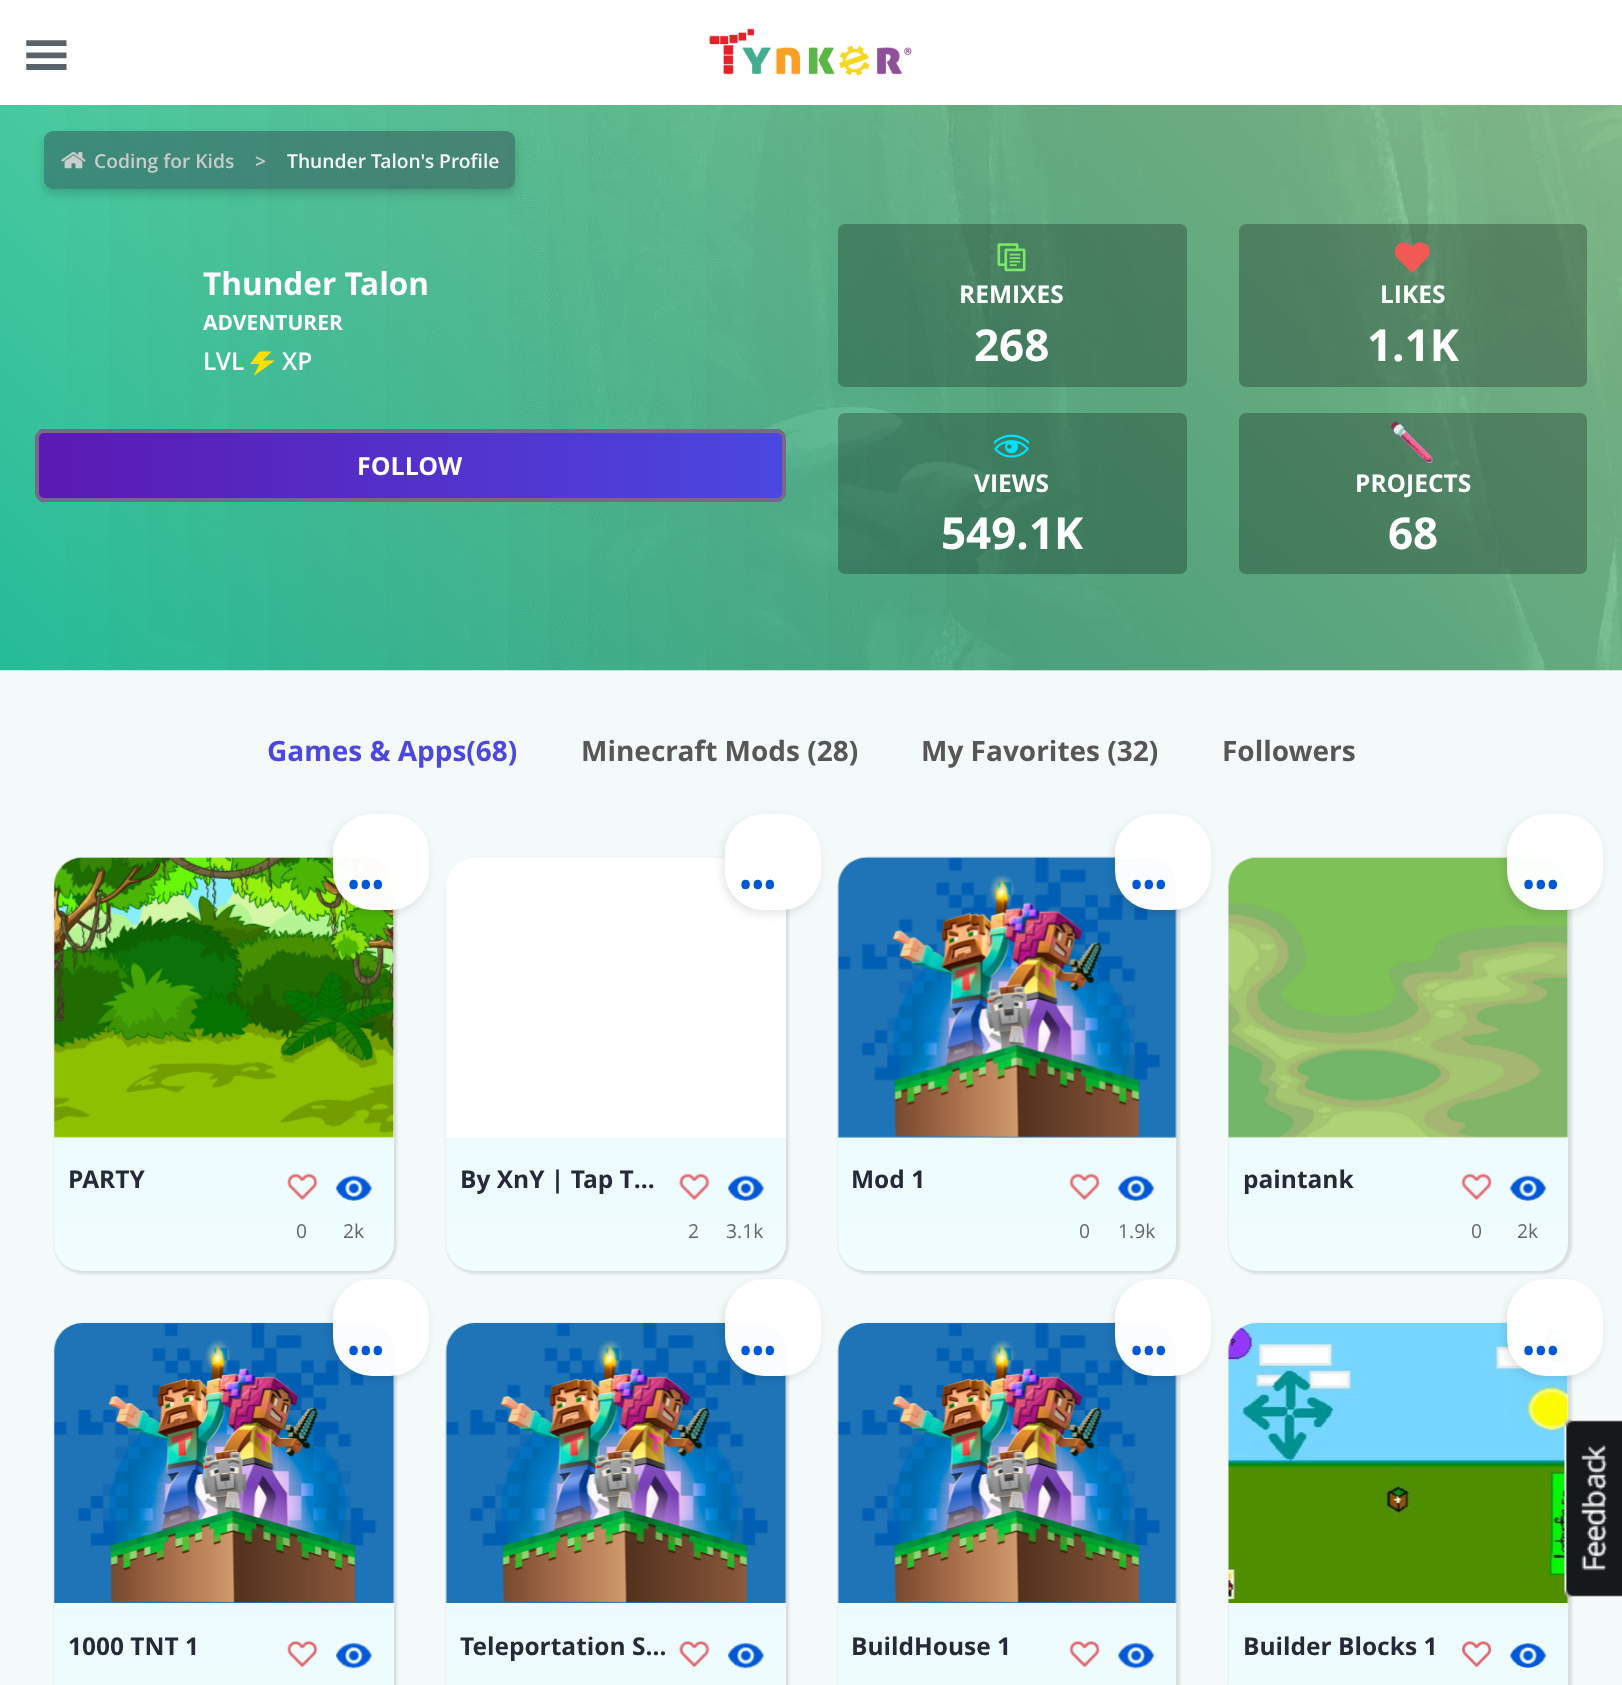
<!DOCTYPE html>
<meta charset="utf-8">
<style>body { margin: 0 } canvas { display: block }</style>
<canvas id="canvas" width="1622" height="1685"></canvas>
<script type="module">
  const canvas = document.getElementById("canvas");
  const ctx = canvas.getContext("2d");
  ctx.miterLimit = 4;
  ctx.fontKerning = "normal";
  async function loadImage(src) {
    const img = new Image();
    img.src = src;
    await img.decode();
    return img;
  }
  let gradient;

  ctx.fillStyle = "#f4f9fa";
  ctx.fillRect(0, 0, 1622, 1685);
  ctx.fillStyle = "#ffffff";
  ctx.fillRect(0, 0, 1622, 105);
  ctx.drawImage(await loadImage("img1.png"), 26, 40, 41, 30);
  ctx.drawImage(await loadImage("img2.png"), 709, 28, 203, 48);
  ctx.drawImage(await loadImage("img3.png"), 0, 105, 1622, 566);
  ctx.save();
  ctx.beginPath();
  ctx.moveTo(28, 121);
  ctx.lineTo(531, 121);
  ctx.lineTo(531, 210);
  ctx.lineTo(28, 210);
  ctx.closePath();
  ctx.moveTo(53, 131);
  ctx.lineTo(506, 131);
  ctx.bezierCurveTo(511, 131, 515, 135, 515, 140);
  ctx.lineTo(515, 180);
  ctx.bezierCurveTo(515, 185, 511, 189, 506, 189);
  ctx.lineTo(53, 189);
  ctx.bezierCurveTo(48, 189, 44, 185, 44, 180);
  ctx.lineTo(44, 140);
  ctx.bezierCurveTo(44, 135, 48, 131, 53, 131);
  ctx.closePath();
  ctx.clip("evenodd");
  ctx.fillStyle = "rgba(0, 0, 0, 0.16)";
  ctx.filter = "blur(5px)";
  ctx.beginPath();
  ctx.roundRect(44, 137, 471, 57, 9);
  ctx.fill();
  ctx.filter = "none";
  ctx.restore();
  ctx.fillStyle = "rgba(46, 51, 71, 0.4)";
  ctx.beginPath();
  ctx.roundRect(44, 131, 471, 58, 9);
  ctx.fill();
  ctx.drawImage(await loadImage("img4.png"), 61, 152, 25, 17);
  ctx.font = "600 19.25px Open Sans";
  ctx.fillStyle = "#cccccc";
  ctx.fillText("Coding for Kids", 94, 168);
  ctx.fillText(">", 255, 168);
  ctx.fillStyle = "#f8f8f8";
  ctx.fillText("Thunder Talon's Profile", 287, 168);
  ctx.font = "bold 31.5px Open Sans";
  ctx.fillStyle = "#fefefe";
  ctx.fillText("Thunder Talon", 203, 295);
  ctx.font = "bold 21px Open Sans";
  ctx.fillText("ADVENTURER", 203, 330);
  ctx.font = "600 24.5px Open Sans";
  ctx.fillText("LVL", 203, 370);
  ctx.fillStyle = "#ffe000";
  ctx.beginPath();
  ctx.moveTo(259.5, 351.5);
  ctx.lineTo(250, 364);
  ctx.lineTo(259.5, 364);
  ctx.lineTo(253.5, 376);
  ctx.lineTo(275, 360.5);
  ctx.lineTo(262.5, 360.5);
  ctx.lineTo(271.5, 351.5);
  ctx.closePath();
  ctx.fill();
  ctx.fillStyle = "#fefefe";
  ctx.fillText("XP", 282, 370);
  ctx.save();
  ctx.beginPath();
  ctx.roundRect(35, 429, 751, 73, 9);
  ctx.clip();
  gradient = ctx.createLinearGradient(39, 466, 782, 466);
  gradient.addColorStop(0, "#5b1ab3");
  gradient.addColorStop(1, "#4b47e0");
  ctx.fillStyle = gradient;
  ctx.fillRect(39, 429, 743, 73);
  ctx.restore();
  ctx.beginPath();
  ctx.roundRect(37, 431, 747, 69, 7);
  ctx.strokeStyle = "#766889";
  ctx.lineWidth = 4;
  ctx.stroke();
  ctx.font = "bold 25px Open Sans";
  ctx.fillText("FOLLOW", 357, 475);
  ctx.fillStyle = "rgba(0, 0, 0, 0.25)";
  ctx.beginPath();
  ctx.roundRect(838, 224, 349, 163, 7);
  ctx.fill();
  ctx.drawImage(await loadImage("img5.png"), 997, 243, 29, 29);
  ctx.font = "bold 24.5px Open Sans";
  ctx.fillStyle = "#fefefe";
  ctx.fillText("REMIXES", 959, 303);
  ctx.font = "bold 44px Open Sans";
  ctx.fillText("268", 974, 361);
  ctx.fillStyle = "rgba(0, 0, 0, 0.25)";
  ctx.beginPath();
  ctx.roundRect(1239, 224, 348, 163, 7);
  ctx.fill();
  ctx.drawImage(await loadImage("img6.png"), 1394, 242, 36, 31);
  ctx.font = "bold 24.5px Open Sans";
  ctx.fillStyle = "#fefefe";
  ctx.fillText("LIKES", 1380, 303);
  ctx.font = "bold 44px Open Sans";
  ctx.fillText("1.1K", 1367, 361);
  ctx.fillStyle = "rgba(0, 0, 0, 0.25)";
  ctx.beginPath();
  ctx.roundRect(838, 413, 349, 161, 7);
  ctx.fill();
  ctx.drawImage(await loadImage("img7.png"), 994, 434, 35, 24);
  ctx.font = "bold 24.5px Open Sans";
  ctx.fillStyle = "#fefefe";
  ctx.fillText("VIEWS", 974, 492);
  ctx.font = "bold 44px Open Sans";
  ctx.fillText("549.1K", 941, 549);
  ctx.fillStyle = "rgba(0, 0, 0, 0.25)";
  ctx.beginPath();
  ctx.roundRect(1239, 413, 348, 161, 7);
  ctx.fill();
  ctx.drawImage(await loadImage("img8.png"), 1391, 421, 43, 43);
  ctx.font = "bold 24.5px Open Sans";
  ctx.fillStyle = "#fefefe";
  ctx.fillText("PROJECTS", 1355, 492);
  ctx.font = "bold 44px Open Sans";
  ctx.fillText("68", 1388, 549);
  ctx.font = "bold 28px Open Sans";
  ctx.fillStyle = "#4b47e0";
  ctx.fillText("Games & Apps(68)", 267, 761);
  ctx.fillStyle = "#575757";
  ctx.fillText("Minecraft Mods (28)", 581, 761);
  ctx.fillText("My Favorites (32)", 921, 761);
  ctx.fillText("Followers", 1222, 761);
  ctx.fillStyle = "rgba(0, 0, 0, 0.1)";
  ctx.filter = "blur(1px)";
  ctx.beginPath();
  ctx.roundRect(54, 858, 343, 416, 30);
  ctx.fill();
  ctx.filter = "none";
  gradient = ctx.createLinearGradient(224, 858, 224, 1271);
  gradient.addColorStop(0, "#e4f6fc");
  gradient.addColorStop(1, "#f1fdff");
  ctx.fillStyle = gradient;
  ctx.beginPath();
  ctx.roundRect(54, 858, 340, 413, 28);
  ctx.fill();
  ctx.fillStyle = "#ffffff";
  ctx.beginPath();
  ctx.roundRect(54, 858, 340, 280, [28, 28, 0, 0]);
  ctx.fill();
  ctx.drawImage(await loadImage("img9.png"), 54, 857, 341, 281);
  ctx.save();
  ctx.beginPath();
  ctx.moveTo(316, 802);
  ctx.lineTo(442, 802);
  ctx.lineTo(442, 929);
  ctx.lineTo(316, 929);
  ctx.closePath();
  ctx.moveTo(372, 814);
  ctx.lineTo(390, 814);
  ctx.bezierCurveTo(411.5, 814, 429, 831.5, 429, 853);
  ctx.lineTo(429, 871);
  ctx.bezierCurveTo(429, 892.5, 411.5, 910, 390, 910);
  ctx.lineTo(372, 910);
  ctx.bezierCurveTo(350.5, 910, 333, 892.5, 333, 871);
  ctx.lineTo(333, 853);
  ctx.bezierCurveTo(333, 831.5, 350.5, 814, 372, 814);
  ctx.closePath();
  ctx.clip("evenodd");
  ctx.fillStyle = "rgba(0, 0, 0, 0.1)";
  ctx.filter = "blur(4.5px)";
  ctx.beginPath();
  ctx.roundRect(331, 817, 96, 97, 39);
  ctx.fill();
  ctx.filter = "none";
  ctx.restore();
  ctx.fillStyle = "rgba(255, 255, 255, 0.98)";
  ctx.beginPath();
  ctx.roundRect(333, 814, 96, 96, 39);
  ctx.fill();
  ctx.letterSpacing = "-7px";
  ctx.font = "72px Open Sans";
  ctx.fillStyle = "#0058d7";
  ctx.fillText("···", 344, 910);
  ctx.letterSpacing = "0px";
  ctx.font = "bold 24.5px Open Sans";
  ctx.fillStyle = "#25293a";
  ctx.fillText("PARTY", 68, 1188);
  ctx.drawImage(await loadImage("img10.png"), 287, 1173, 31, 27);
  ctx.font = "19.25px Open Sans";
  ctx.fillStyle = "#666666";
  ctx.fillText("0", 296, 1238);
  ctx.drawImage(await loadImage("img11.png"), 335, 1175, 38, 26);
  ctx.fillText("2k", 343, 1238);
  ctx.fillStyle = "rgba(0, 0, 0, 0.1)";
  ctx.filter = "blur(1px)";
  ctx.beginPath();
  ctx.roundRect(446, 858, 343, 416, 30);
  ctx.fill();
  ctx.filter = "none";
  gradient = ctx.createLinearGradient(616, 858, 616, 1271);
  gradient.addColorStop(0, "#e4f6fc");
  gradient.addColorStop(1, "#f1fdff");
  ctx.fillStyle = gradient;
  ctx.beginPath();
  ctx.roundRect(446, 858, 340, 413, 28);
  ctx.fill();
  ctx.fillStyle = "#ffffff";
  ctx.beginPath();
  ctx.roundRect(446, 858, 340, 280, [28, 28, 0, 0]);
  ctx.fill();
  ctx.drawImage(await loadImage("img12.png"), 446, 857, 341, 280);
  ctx.save();
  ctx.beginPath();
  ctx.moveTo(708, 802);
  ctx.lineTo(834, 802);
  ctx.lineTo(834, 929);
  ctx.lineTo(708, 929);
  ctx.closePath();
  ctx.moveTo(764, 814);
  ctx.lineTo(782, 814);
  ctx.bezierCurveTo(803.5, 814, 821, 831.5, 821, 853);
  ctx.lineTo(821, 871);
  ctx.bezierCurveTo(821, 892.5, 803.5, 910, 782, 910);
  ctx.lineTo(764, 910);
  ctx.bezierCurveTo(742.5, 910, 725, 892.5, 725, 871);
  ctx.lineTo(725, 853);
  ctx.bezierCurveTo(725, 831.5, 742.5, 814, 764, 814);
  ctx.closePath();
  ctx.clip("evenodd");
  ctx.fillStyle = "rgba(0, 0, 0, 0.1)";
  ctx.filter = "blur(4.5px)";
  ctx.beginPath();
  ctx.roundRect(723, 817, 96, 97, 39);
  ctx.fill();
  ctx.filter = "none";
  ctx.restore();
  ctx.fillStyle = "rgba(255, 255, 255, 0.98)";
  ctx.beginPath();
  ctx.roundRect(725, 814, 96, 96, 39);
  ctx.fill();
  ctx.letterSpacing = "-7px";
  ctx.font = "72px Open Sans";
  ctx.fillStyle = "#0058d7";
  ctx.fillText("···", 736, 910);
  ctx.letterSpacing = "0px";
  ctx.font = "bold 24.5px Open Sans";
  ctx.fillStyle = "#25293a";
  ctx.fillText("By XnY | Tap T…", 460, 1188);
  ctx.drawImage(await loadImage("img13.png"), 679, 1173, 31, 27);
  ctx.font = "19.25px Open Sans";
  ctx.fillStyle = "#666666";
  ctx.fillText("2", 688, 1238);
  ctx.drawImage(await loadImage("img11.png"), 727, 1175, 38, 26);
  ctx.fillText("3.1k", 726, 1238);
  ctx.fillStyle = "rgba(0, 0, 0, 0.1)";
  ctx.filter = "blur(1px)";
  ctx.beginPath();
  ctx.roundRect(838, 858, 342, 416, 30);
  ctx.fill();
  ctx.filter = "none";
  gradient = ctx.createLinearGradient(1007, 858, 1007, 1271);
  gradient.addColorStop(0, "#e4f6fc");
  gradient.addColorStop(1, "#f1fdff");
  ctx.fillStyle = gradient;
  ctx.beginPath();
  ctx.roundRect(838, 858, 338, 413, 28);
  ctx.fill();
  ctx.fillStyle = "#ffffff";
  ctx.beginPath();
  ctx.roundRect(838, 858, 338, 280, [28, 28, 0, 0]);
  ctx.fill();
  ctx.drawImage(await loadImage("img14.png"), 837, 856, 340, 282);
  ctx.save();
  ctx.beginPath();
  ctx.moveTo(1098, 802);
  ctx.lineTo(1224, 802);
  ctx.lineTo(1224, 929);
  ctx.lineTo(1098, 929);
  ctx.closePath();
  ctx.moveTo(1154, 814);
  ctx.lineTo(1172, 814);
  ctx.bezierCurveTo(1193.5, 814, 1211, 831.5, 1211, 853);
  ctx.lineTo(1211, 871);
  ctx.bezierCurveTo(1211, 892.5, 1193.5, 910, 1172, 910);
  ctx.lineTo(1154, 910);
  ctx.bezierCurveTo(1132.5, 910, 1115, 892.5, 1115, 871);
  ctx.lineTo(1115, 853);
  ctx.bezierCurveTo(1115, 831.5, 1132.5, 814, 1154, 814);
  ctx.closePath();
  ctx.clip("evenodd");
  ctx.fillStyle = "rgba(0, 0, 0, 0.1)";
  ctx.filter = "blur(4.5px)";
  ctx.beginPath();
  ctx.roundRect(1113, 817, 96, 97, 39);
  ctx.fill();
  ctx.filter = "none";
  ctx.restore();
  ctx.fillStyle = "rgba(255, 255, 255, 0.98)";
  ctx.beginPath();
  ctx.roundRect(1115, 814, 96, 96, 39);
  ctx.fill();
  ctx.letterSpacing = "-7px";
  ctx.font = "72px Open Sans";
  ctx.fillStyle = "#0058d7";
  ctx.fillText("···", 1127, 910);
  ctx.letterSpacing = "0px";
  ctx.font = "bold 24.5px Open Sans";
  ctx.fillStyle = "#25293a";
  ctx.fillText("Mod 1", 851, 1188);
  ctx.drawImage(await loadImage("img15.png"), 1069, 1173, 31, 27);
  ctx.font = "19.25px Open Sans";
  ctx.fillStyle = "#666666";
  ctx.fillText("0", 1079, 1238);
  ctx.drawImage(await loadImage("img16.png"), 1117, 1175, 38, 26);
  ctx.fillText("1.9k", 1118, 1238);
  ctx.fillStyle = "rgba(0, 0, 0, 0.1)";
  ctx.filter = "blur(1px)";
  ctx.beginPath();
  ctx.roundRect(1229, 858, 343, 416, 30);
  ctx.fill();
  ctx.filter = "none";
  gradient = ctx.createLinearGradient(1398, 858, 1398, 1271);
  gradient.addColorStop(0, "#e4f6fc");
  gradient.addColorStop(1, "#f1fdff");
  ctx.fillStyle = gradient;
  ctx.beginPath();
  ctx.roundRect(1229, 858, 339, 413, 28);
  ctx.fill();
  ctx.fillStyle = "#ffffff";
  ctx.beginPath();
  ctx.roundRect(1229, 858, 339, 280, [28, 28, 0, 0]);
  ctx.fill();
  ctx.drawImage(await loadImage("img17.png"), 1228, 857, 341, 281);
  ctx.save();
  ctx.beginPath();
  ctx.moveTo(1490, 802);
  ctx.lineTo(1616, 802);
  ctx.lineTo(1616, 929);
  ctx.lineTo(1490, 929);
  ctx.closePath();
  ctx.moveTo(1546, 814);
  ctx.lineTo(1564, 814);
  ctx.bezierCurveTo(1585.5, 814, 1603, 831.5, 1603, 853);
  ctx.lineTo(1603, 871);
  ctx.bezierCurveTo(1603, 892.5, 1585.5, 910, 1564, 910);
  ctx.lineTo(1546, 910);
  ctx.bezierCurveTo(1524.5, 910, 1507, 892.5, 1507, 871);
  ctx.lineTo(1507, 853);
  ctx.bezierCurveTo(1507, 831.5, 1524.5, 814, 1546, 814);
  ctx.closePath();
  ctx.clip("evenodd");
  ctx.fillStyle = "rgba(0, 0, 0, 0.1)";
  ctx.filter = "blur(4.5px)";
  ctx.beginPath();
  ctx.roundRect(1505, 817, 96, 97, 39);
  ctx.fill();
  ctx.filter = "none";
  ctx.restore();
  ctx.fillStyle = "rgba(255, 255, 255, 0.98)";
  ctx.beginPath();
  ctx.roundRect(1507, 814, 96, 96, 39);
  ctx.fill();
  ctx.letterSpacing = "-7px";
  ctx.font = "72px Open Sans";
  ctx.fillStyle = "#0058d7";
  ctx.fillText("···", 1519, 910);
  ctx.letterSpacing = "0px";
  ctx.font = "bold 24.5px Open Sans";
  ctx.fillStyle = "#25293a";
  ctx.fillText("paintank", 1243, 1188);
  ctx.drawImage(await loadImage("img15.png"), 1461, 1173, 31, 27);
  ctx.font = "19.25px Open Sans";
  ctx.fillStyle = "#666666";
  ctx.fillText("0", 1471, 1238);
  ctx.drawImage(await loadImage("img16.png"), 1509, 1175, 38, 26);
  ctx.fillText("2k", 1517, 1238);
  ctx.fillStyle = "rgba(0, 0, 0, 0.1)";
  ctx.filter = "blur(1px)";
  ctx.beginPath();
  ctx.roundRect(54, 1323, 343, 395, 30);
  ctx.fill();
  ctx.filter = "none";
  gradient = ctx.createLinearGradient(224, 1323, 224, 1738);
  gradient.addColorStop(0, "#e4f6fc");
  gradient.addColorStop(1, "#f1fdff");
  ctx.fillStyle = gradient;
  ctx.beginPath();
  ctx.roundRect(54, 1323, 340, 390, 28);
  ctx.fill();
  ctx.fillStyle = "#ffffff";
  ctx.beginPath();
  ctx.roundRect(54, 1323, 340, 280, [28, 28, 0, 0]);
  ctx.fill();
  ctx.drawImage(await loadImage("img18.png"), 54, 1323, 341, 280);
  ctx.save();
  ctx.beginPath();
  ctx.moveTo(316, 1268);
  ctx.lineTo(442, 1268);
  ctx.lineTo(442, 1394);
  ctx.lineTo(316, 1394);
  ctx.closePath();
  ctx.moveTo(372, 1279);
  ctx.lineTo(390, 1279);
  ctx.bezierCurveTo(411.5, 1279, 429, 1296.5, 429, 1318);
  ctx.lineTo(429, 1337);
  ctx.bezierCurveTo(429, 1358.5, 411.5, 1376, 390, 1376);
  ctx.lineTo(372, 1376);
  ctx.bezierCurveTo(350.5, 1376, 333, 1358.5, 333, 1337);
  ctx.lineTo(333, 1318);
  ctx.bezierCurveTo(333, 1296.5, 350.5, 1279, 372, 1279);
  ctx.closePath();
  ctx.clip("evenodd");
  ctx.fillStyle = "rgba(0, 0, 0, 0.1)";
  ctx.filter = "blur(4.5px)";
  ctx.beginPath();
  ctx.roundRect(331, 1283, 96, 96, 39);
  ctx.fill();
  ctx.filter = "none";
  ctx.restore();
  ctx.fillStyle = "rgba(255, 255, 255, 0.98)";
  ctx.beginPath();
  ctx.roundRect(333, 1279, 96, 97, 39);
  ctx.fill();
  ctx.letterSpacing = "-7px";
  ctx.font = "72px Open Sans";
  ctx.fillStyle = "#0058d7";
  ctx.fillText("···", 344, 1376);
  ctx.letterSpacing = "0px";
  ctx.font = "bold 24.5px Open Sans";
  ctx.fillStyle = "#25293a";
  ctx.fillText("1000 TNT 1", 68, 1655);
  ctx.drawImage(await loadImage("img19.png"), 287, 1641, 31, 26);
  ctx.drawImage(await loadImage("img20.png"), 335, 1642, 38, 27);
  ctx.fillStyle = "rgba(0, 0, 0, 0.1)";
  ctx.filter = "blur(1px)";
  ctx.beginPath();
  ctx.roundRect(446, 1323, 343, 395, 30);
  ctx.fill();
  ctx.filter = "none";
  gradient = ctx.createLinearGradient(616, 1323, 616, 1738);
  gradient.addColorStop(0, "#e4f6fc");
  gradient.addColorStop(1, "#f1fdff");
  ctx.fillStyle = gradient;
  ctx.beginPath();
  ctx.roundRect(446, 1323, 340, 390, 28);
  ctx.fill();
  ctx.fillStyle = "#ffffff";
  ctx.beginPath();
  ctx.roundRect(446, 1323, 340, 280, [28, 28, 0, 0]);
  ctx.fill();
  ctx.drawImage(await loadImage("img21.png"), 445, 1323, 342, 280);
  ctx.save();
  ctx.beginPath();
  ctx.moveTo(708, 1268);
  ctx.lineTo(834, 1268);
  ctx.lineTo(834, 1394);
  ctx.lineTo(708, 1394);
  ctx.closePath();
  ctx.moveTo(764, 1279);
  ctx.lineTo(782, 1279);
  ctx.bezierCurveTo(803.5, 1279, 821, 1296.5, 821, 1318);
  ctx.lineTo(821, 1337);
  ctx.bezierCurveTo(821, 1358.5, 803.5, 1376, 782, 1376);
  ctx.lineTo(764, 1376);
  ctx.bezierCurveTo(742.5, 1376, 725, 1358.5, 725, 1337);
  ctx.lineTo(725, 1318);
  ctx.bezierCurveTo(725, 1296.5, 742.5, 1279, 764, 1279);
  ctx.closePath();
  ctx.clip("evenodd");
  ctx.fillStyle = "rgba(0, 0, 0, 0.1)";
  ctx.filter = "blur(4.5px)";
  ctx.beginPath();
  ctx.roundRect(723, 1283, 96, 96, 39);
  ctx.fill();
  ctx.filter = "none";
  ctx.restore();
  ctx.fillStyle = "rgba(255, 255, 255, 0.98)";
  ctx.beginPath();
  ctx.roundRect(725, 1279, 96, 97, 39);
  ctx.fill();
  ctx.letterSpacing = "-7px";
  ctx.font = "72px Open Sans";
  ctx.fillStyle = "#0058d7";
  ctx.fillText("···", 736, 1376);
  ctx.letterSpacing = "0px";
  ctx.font = "bold 24.5px Open Sans";
  ctx.fillStyle = "#25293a";
  ctx.fillText("Teleportation S…", 460, 1655);
  ctx.drawImage(await loadImage("img22.png"), 679, 1641, 31, 26);
  ctx.drawImage(await loadImage("img20.png"), 727, 1642, 38, 27);
  ctx.fillStyle = "rgba(0, 0, 0, 0.1)";
  ctx.filter = "blur(1px)";
  ctx.beginPath();
  ctx.roundRect(838, 1323, 342, 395, 30);
  ctx.fill();
  ctx.filter = "none";
  gradient = ctx.createLinearGradient(1007, 1323, 1007, 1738);
  gradient.addColorStop(0, "#e4f6fc");
  gradient.addColorStop(1, "#f1fdff");
  ctx.fillStyle = gradient;
  ctx.beginPath();
  ctx.roundRect(838, 1323, 338, 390, 28);
  ctx.fill();
  ctx.fillStyle = "#ffffff";
  ctx.beginPath();
  ctx.roundRect(838, 1323, 338, 280, [28, 28, 0, 0]);
  ctx.fill();
  ctx.drawImage(await loadImage("img23.png"), 837, 1323, 340, 280);
  ctx.save();
  ctx.beginPath();
  ctx.moveTo(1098, 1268);
  ctx.lineTo(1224, 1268);
  ctx.lineTo(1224, 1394);
  ctx.lineTo(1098, 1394);
  ctx.closePath();
  ctx.moveTo(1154, 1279);
  ctx.lineTo(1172, 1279);
  ctx.bezierCurveTo(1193.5, 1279, 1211, 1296.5, 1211, 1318);
  ctx.lineTo(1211, 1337);
  ctx.bezierCurveTo(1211, 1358.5, 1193.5, 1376, 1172, 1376);
  ctx.lineTo(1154, 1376);
  ctx.bezierCurveTo(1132.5, 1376, 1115, 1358.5, 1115, 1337);
  ctx.lineTo(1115, 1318);
  ctx.bezierCurveTo(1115, 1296.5, 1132.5, 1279, 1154, 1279);
  ctx.closePath();
  ctx.clip("evenodd");
  ctx.fillStyle = "rgba(0, 0, 0, 0.1)";
  ctx.filter = "blur(4.5px)";
  ctx.beginPath();
  ctx.roundRect(1113, 1283, 96, 96, 39);
  ctx.fill();
  ctx.filter = "none";
  ctx.restore();
  ctx.fillStyle = "rgba(255, 255, 255, 0.98)";
  ctx.beginPath();
  ctx.roundRect(1115, 1279, 96, 97, 39);
  ctx.fill();
  ctx.letterSpacing = "-7px";
  ctx.font = "72px Open Sans";
  ctx.fillStyle = "#0058d7";
  ctx.fillText("···", 1127, 1376);
  ctx.letterSpacing = "0px";
  ctx.font = "bold 24.5px Open Sans";
  ctx.fillStyle = "#25293a";
  ctx.fillText("BuildHouse 1", 851, 1655);
  ctx.drawImage(await loadImage("img24.png"), 1069, 1641, 31, 26);
  ctx.drawImage(await loadImage("img25.png"), 1117, 1642, 38, 27);
  ctx.fillStyle = "rgba(0, 0, 0, 0.1)";
  ctx.filter = "blur(1px)";
  ctx.beginPath();
  ctx.roundRect(1229, 1323, 343, 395, 30);
  ctx.fill();
  ctx.filter = "none";
  gradient = ctx.createLinearGradient(1398, 1323, 1398, 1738);
  gradient.addColorStop(0, "#e4f6fc");
  gradient.addColorStop(1, "#f1fdff");
  ctx.fillStyle = gradient;
  ctx.beginPath();
  ctx.roundRect(1229, 1323, 339, 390, 28);
  ctx.fill();
  ctx.fillStyle = "#ffffff";
  ctx.beginPath();
  ctx.roundRect(1229, 1323, 339, 280, [28, 28, 0, 0]);
  ctx.fill();
  ctx.drawImage(await loadImage("img26.png"), 1228, 1323, 341, 280);
  ctx.save();
  ctx.beginPath();
  ctx.moveTo(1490, 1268);
  ctx.lineTo(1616, 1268);
  ctx.lineTo(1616, 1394);
  ctx.lineTo(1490, 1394);
  ctx.closePath();
  ctx.moveTo(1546, 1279);
  ctx.lineTo(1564, 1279);
  ctx.bezierCurveTo(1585.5, 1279, 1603, 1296.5, 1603, 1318);
  ctx.lineTo(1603, 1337);
  ctx.bezierCurveTo(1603, 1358.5, 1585.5, 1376, 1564, 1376);
  ctx.lineTo(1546, 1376);
  ctx.bezierCurveTo(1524.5, 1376, 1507, 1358.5, 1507, 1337);
  ctx.lineTo(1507, 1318);
  ctx.bezierCurveTo(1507, 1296.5, 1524.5, 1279, 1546, 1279);
  ctx.closePath();
  ctx.clip("evenodd");
  ctx.fillStyle = "rgba(0, 0, 0, 0.1)";
  ctx.filter = "blur(4.5px)";
  ctx.beginPath();
  ctx.roundRect(1505, 1283, 96, 96, 39);
  ctx.fill();
  ctx.filter = "none";
  ctx.restore();
  ctx.fillStyle = "rgba(255, 255, 255, 0.98)";
  ctx.beginPath();
  ctx.roundRect(1507, 1279, 96, 97, 39);
  ctx.fill();
  ctx.letterSpacing = "-7px";
  ctx.font = "72px Open Sans";
  ctx.fillStyle = "#0058d7";
  ctx.fillText("···", 1519, 1376);
  ctx.letterSpacing = "0px";
  ctx.font = "bold 24.5px Open Sans";
  ctx.fillStyle = "#25293a";
  ctx.fillText("Builder Blocks 1", 1243, 1655);
  ctx.drawImage(await loadImage("img27.png"), 1462, 1641, 29, 26);
  ctx.drawImage(await loadImage("img28.png"), 1509, 1642, 38, 26);
  ctx.drawImage(await loadImage("img29.png"), 1564, 1419, 58, 179);
</script>
